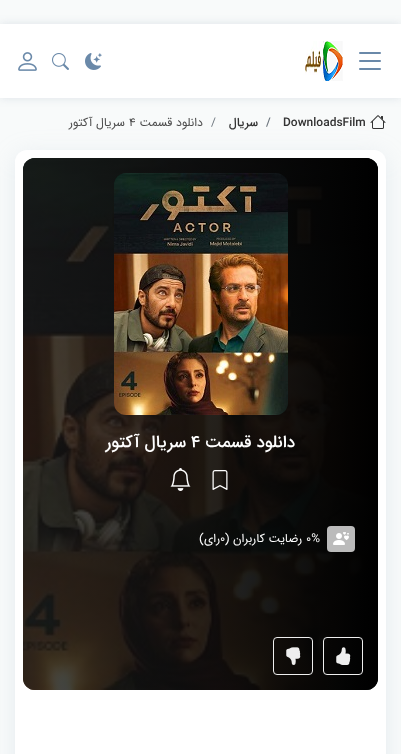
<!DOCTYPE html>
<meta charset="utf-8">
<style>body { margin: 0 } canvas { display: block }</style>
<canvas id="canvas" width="401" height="754"></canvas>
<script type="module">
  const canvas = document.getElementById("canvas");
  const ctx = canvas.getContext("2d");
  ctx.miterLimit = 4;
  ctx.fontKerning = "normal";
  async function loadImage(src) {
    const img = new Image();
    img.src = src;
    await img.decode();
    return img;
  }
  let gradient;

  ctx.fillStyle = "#f8fafa";
  ctx.fillRect(0, 0, 401, 754);
  ctx.fillStyle = "rgba(54, 83, 120, 0.14)";
  ctx.filter = "blur(5px)";
  ctx.beginPath();
  ctx.rect(0, 24, 401, 74);
  ctx.fill();
  ctx.filter = "none";
  ctx.fillStyle = "#ffffff";
  ctx.fillRect(0, 24, 401, 74);
  ctx.drawImage(await loadImage("img1.png"), 359, 52, 22, 18);
  ctx.drawImage(await loadImage("img2.png"), 305, 41, 38, 40);
  ctx.drawImage(await loadImage("img3.png"), 85, 53, 17, 17);
  ctx.drawImage(await loadImage("img4.png"), 52, 53, 17, 17);
  ctx.drawImage(await loadImage("img5.png"), 18, 52, 19, 19);
  ctx.drawImage(await loadImage("img6.png"), 370, 115, 16, 14);
  ctx.font = "500 12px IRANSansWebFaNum";
  ctx.fillStyle = "#333333";
  ctx.fillText("DownloadsFilm", 283, 126);
  ctx.fillStyle = "#6c757d";
  ctx.fillText("/", 266, 126);
  ctx.direction = "rtl";
  ctx.fillStyle = "#333333";
  ctx.fillText("سریال", 258, 126);
  ctx.direction = "ltr";
  ctx.font = "12px IRANSansWebFaNum";
  ctx.fillStyle = "#6c757d";
  ctx.fillText("/", 211, 126);
  ctx.direction = "rtl";
  ctx.fillStyle = "#4c4c4c";
  ctx.fillText("دانلود قسمت", 203, 126);
  ctx.direction = "ltr";
  ctx.fillText("۴", 129, 126);
  ctx.direction = "rtl";
  ctx.fillText("سریال آکتور", 125, 126);
  ctx.fillStyle = "rgba(160, 178, 200, 0.2)";
  ctx.filter = "blur(12.5px)";
  ctx.beginPath();
  ctx.roundRect(15, 155, 371, 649, 12);
  ctx.fill();
  ctx.filter = "none";
  ctx.fillStyle = "#ffffff";
  ctx.beginPath();
  ctx.roundRect(15, 150, 371, 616, 12);
  ctx.fill();
  ctx.fillStyle = "#000000";
  ctx.beginPath();
  ctx.roundRect(23, 158, 355, 532, 12);
  ctx.fill();
  ctx.drawImage(await loadImage("img7.png"), 23, 158, 355, 532);
  gradient = ctx.createLinearGradient(378, 424, 23, 424);
  gradient.addColorStop(0, "#000000");
  gradient.addColorStop(1, "rgba(26, 26, 26, 0.68)");
  ctx.fillStyle = gradient;
  ctx.beginPath();
  ctx.roundRect(23, 158, 355, 532, 12);
  ctx.fill();
  ctx.drawImage(await loadImage("img8.png"), 114, 173, 174, 242);
  ctx.font = "500 17px IRANSansWebFaNum";
  ctx.fillStyle = "#ffffff";
  ctx.fillText("دانلود قسمت", 295, 447);
  ctx.direction = "ltr";
  ctx.fillText("۴", 191, 447);
  ctx.direction = "rtl";
  ctx.fillText("سریال آکتور", 186, 447);
  ctx.drawImage(await loadImage("img9.png"), 212, 470, 16, 20);
  ctx.drawImage(await loadImage("img10.png"), 170, 468, 21, 23);
  ctx.fillStyle = "#bbbbbb";
  ctx.beginPath();
  ctx.roundRect(327, 526, 28, 26, 4);
  ctx.fill();
  ctx.drawImage(await loadImage("img11.png"), 333, 532, 16, 13);
  ctx.direction = "ltr";
  ctx.font = "12px IRANSansWebFaNum";
  ctx.fillStyle = "#ffffff";
  ctx.fillText("0%", 306, 542);
  ctx.direction = "rtl";
  ctx.fillText("رضایت کاربران (", 302, 542);
  ctx.direction = "ltr";
  ctx.fillText("0", 220, 542);
  ctx.direction = "rtl";
  ctx.fillText("رای)", 220, 542);
  ctx.beginPath();
  ctx.roundRect(323.5, 637.5, 39, 37, 3.5);
  ctx.strokeStyle = "#eeeeee";
  ctx.stroke();
  ctx.drawImage(await loadImage("img12.png"), 336, 647, 15, 18);
  ctx.beginPath();
  ctx.roundRect(273.5, 637.5, 39, 37, 3.5);
  ctx.stroke();
  ctx.drawImage(await loadImage("img13.png"), 286, 647, 15, 18);
</script>
